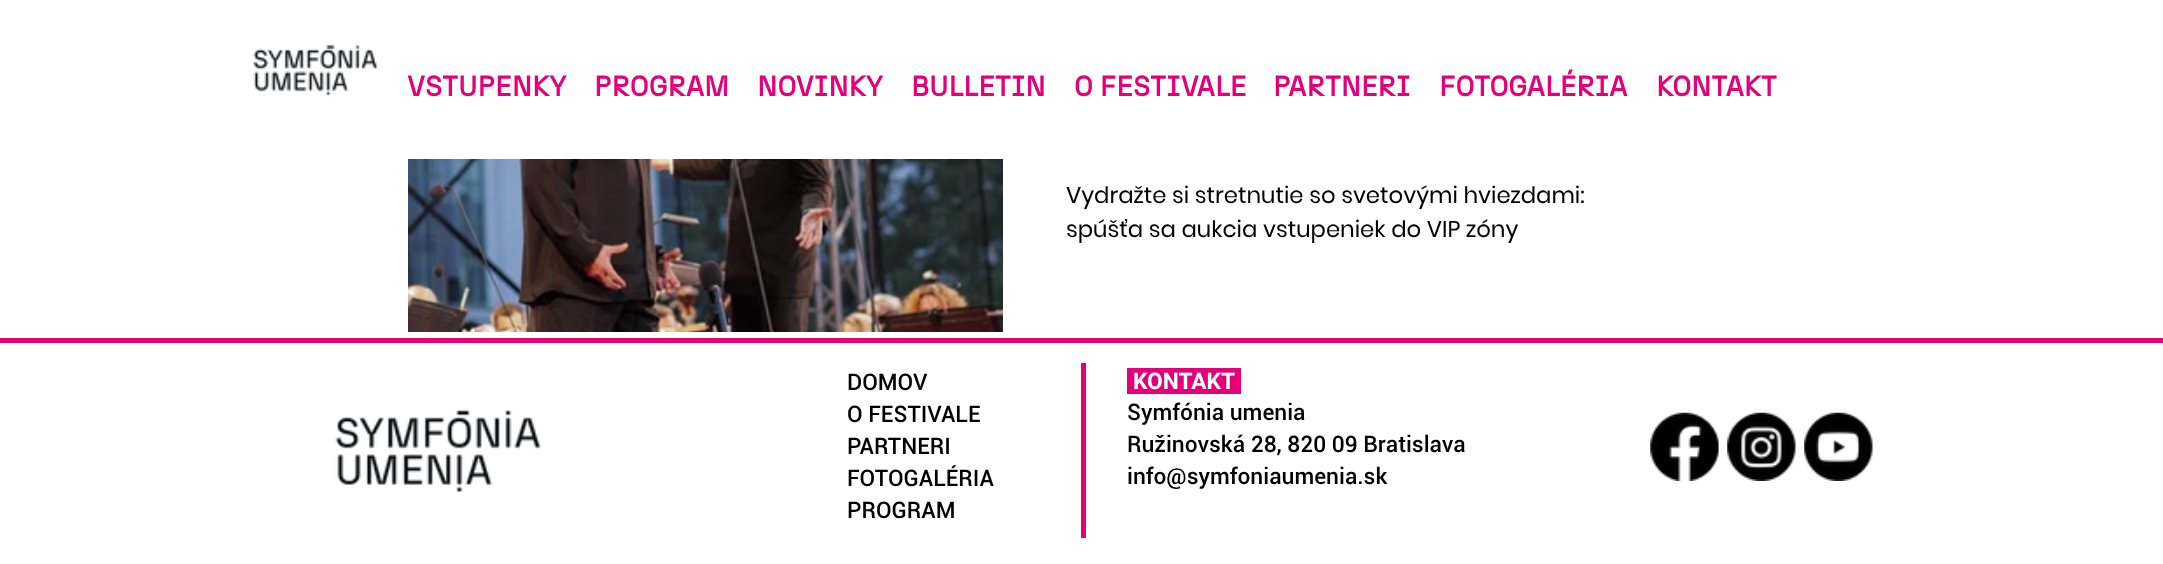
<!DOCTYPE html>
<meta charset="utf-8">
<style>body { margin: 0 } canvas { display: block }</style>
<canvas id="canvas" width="2163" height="564"></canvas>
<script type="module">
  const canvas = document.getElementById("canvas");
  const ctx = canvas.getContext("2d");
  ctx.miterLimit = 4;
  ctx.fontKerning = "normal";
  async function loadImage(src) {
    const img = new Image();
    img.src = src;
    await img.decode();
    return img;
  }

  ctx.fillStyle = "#ffffff";
  ctx.fillRect(0, 0, 2163, 564);
  ctx.drawImage(await loadImage("img1.png"), 253, 44, 125, 53);
  ctx.font = "bold 28px 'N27'";
  ctx.fillStyle = "#e30079";
  ctx.fillText("VSTUPENKY", 407, 96);
  ctx.fillText("PROGRAM", 594, 96);
  ctx.fillText("NOVINKY", 757, 96);
  ctx.fillText("BULLETIN", 911, 96);
  ctx.fillText("O FESTIVALE", 1074, 96);
  ctx.fillText("PARTNERI", 1273, 96);
  ctx.fillText("FOTOGALÉRIA", 1439, 96);
  ctx.fillText("KONTAKT", 1656, 96);
  ctx.drawImage(await loadImage("img2.png"), 408, 159, 595, 173);
  ctx.font = "22.75px Poppins";
  ctx.fillStyle = "#000000";
  ctx.fillText("Vydražte si stretnutie so svetovými hviezdami:", 1066, 203);
  ctx.fillText("spúšťa sa aukcia vstupeniek do VIP zóny", 1066, 237);
  ctx.fillStyle = "#e30079";
  ctx.fillRect(0, 338, 2163, 5);
  ctx.drawImage(await loadImage("img3.png"), 335, 409, 206, 83);
  ctx.font = "500 22.75px Roboto";
  ctx.fillStyle = "#000000";
  ctx.fillText("DOMOV", 847, 390);
  ctx.fillText("O FESTIVALE", 847, 422);
  ctx.fillText("PARTNERI", 847, 454);
  ctx.fillText("FOTOGALÉRIA", 847, 486);
  ctx.fillText("PROGRAM", 847, 518);
  ctx.fillStyle = "#e30079";
  ctx.fillRect(1081, 363, 5, 175);
  ctx.fillRect(1127, 368, 114, 26);
  ctx.font = "bold 22.75px Roboto";
  ctx.fillStyle = "#ffffff";
  ctx.fillText("KONTAKT", 1133, 389);
  ctx.font = "500 22.75px Roboto";
  ctx.fillStyle = "#000000";
  ctx.fillText("Symfónia umenia", 1127, 420);
  ctx.fillText("Ružinovská 28, 820 09 Bratislava", 1127, 452);
  ctx.fillText("info@symfoniaumenia.sk", 1127, 484);
  ctx.drawImage(await loadImage("img4.png"), 1650, 412, 69, 69);
  ctx.drawImage(await loadImage("img5.png"), 1727, 412, 69, 69);
  ctx.drawImage(await loadImage("img6.png"), 1804, 412, 69, 69);
</script>
